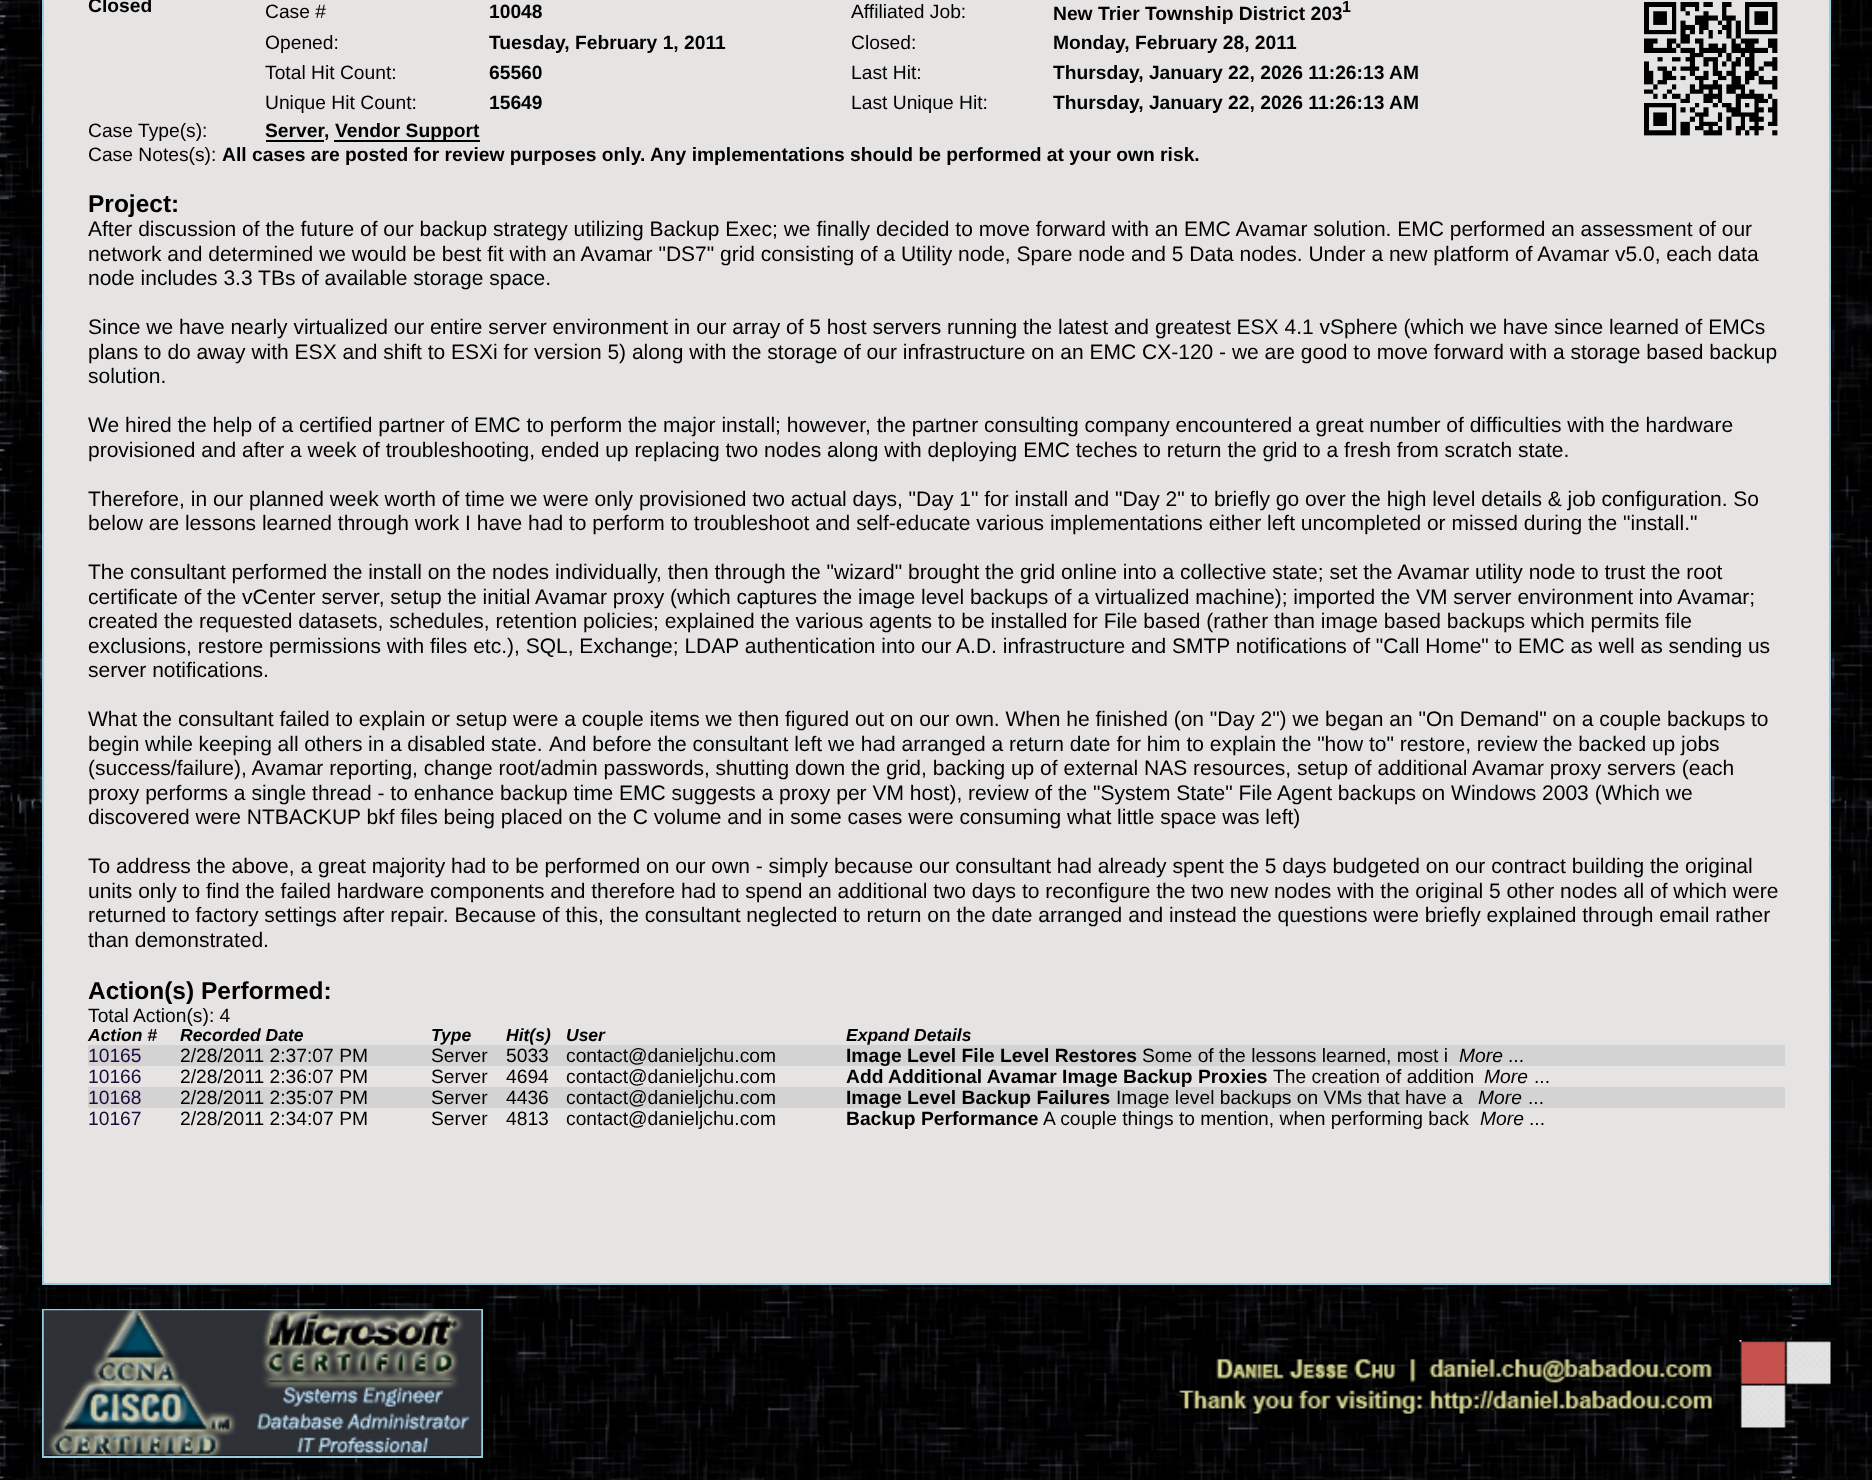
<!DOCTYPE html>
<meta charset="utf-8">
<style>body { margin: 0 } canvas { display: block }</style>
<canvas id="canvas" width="1872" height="1480"></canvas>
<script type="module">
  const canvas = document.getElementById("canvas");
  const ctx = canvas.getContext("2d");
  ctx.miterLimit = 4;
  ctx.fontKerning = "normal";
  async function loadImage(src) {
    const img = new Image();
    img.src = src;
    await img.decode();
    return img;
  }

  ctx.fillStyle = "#ffffff";
  ctx.fillRect(0, 0, 1872, 1480);
  ctx.drawImage(await loadImage("img1.png"), 0, 0, 1872, 1480);
  ctx.fillStyle = "#e6e3e3";
  ctx.beginPath();
  ctx.rect(43, -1, 1787, 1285);
  ctx.fill();
  ctx.strokeStyle = "#94cede";
  ctx.lineWidth = 2;
  ctx.stroke();
  ctx.font = "bold 19.25px Liberation Sans";
  ctx.fillStyle = "#000000";
  ctx.fillText("Closed", 88, 12);
  ctx.font = "19.25px Liberation Sans";
  ctx.fillText("Case #", 265, 18);
  ctx.font = "bold 19.25px Liberation Sans";
  ctx.fillText("10048", 489, 18);
  ctx.font = "19.25px Liberation Sans";
  ctx.fillText("Affiliated Job:", 851, 18);
  ctx.font = "bold 19.25px Liberation Sans";
  ctx.fillText("New Trier Township District 203", 1053, 20);
  ctx.font = "bold 16px Liberation Sans";
  ctx.fillText("1", 1342, 12);
  ctx.drawImage(await loadImage("img2.png"), 1644, 2, 134, 134);
  ctx.font = "19.25px Liberation Sans";
  ctx.fillText("Opened:", 265, 49);
  ctx.font = "bold 19.25px Liberation Sans";
  ctx.fillText("Tuesday, February 1, 2011", 489, 49);
  ctx.font = "19.25px Liberation Sans";
  ctx.fillText("Closed:", 851, 49);
  ctx.font = "bold 19.25px Liberation Sans";
  ctx.fillText("Monday, February 28, 2011", 1053, 49);
  ctx.font = "19.25px Liberation Sans";
  ctx.fillText("Total Hit Count:", 265, 79);
  ctx.font = "bold 19.25px Liberation Sans";
  ctx.fillText("65560", 489, 79);
  ctx.font = "19.25px Liberation Sans";
  ctx.fillText("Last Hit:", 851, 79);
  ctx.font = "bold 19.25px Liberation Sans";
  ctx.fillText("Thursday, January 22, 2026 11:26:13 AM", 1053, 79);
  ctx.font = "19.25px Liberation Sans";
  ctx.fillText("Unique Hit Count:", 265, 109);
  ctx.font = "bold 19.25px Liberation Sans";
  ctx.fillText("15649", 489, 109);
  ctx.font = "19.25px Liberation Sans";
  ctx.fillText("Last Unique Hit:", 851, 109);
  ctx.font = "bold 19.25px Liberation Sans";
  ctx.fillText("Thursday, January 22, 2026 11:26:13 AM", 1053, 109);
  ctx.font = "19.25px Liberation Sans";
  ctx.fillText("Case Type(s):", 88, 137);
  ctx.font = "bold 19.25px Liberation Sans";
  ctx.fillText("Server", 265, 137);
  ctx.fillRect(266, 140, 58, 2);
  ctx.fillText(",", 324, 137);
  ctx.fillRect(334, 140, 146, 2);
  ctx.fillText("Vendor Support", 335, 137);
  ctx.font = "19.25px Liberation Sans";
  ctx.fillText("Case Notes(s):", 88, 161);
  ctx.font = "bold 19.25px Liberation Sans";
  ctx.fillText("All cases are posted for review purposes only. Any implementations should be performed at your own risk.", 222, 161);
  ctx.font = "bold 24.5px Liberation Sans";
  ctx.fillText("Project:", 88, 212);
  ctx.font = "21px Liberation Sans";
  ctx.fillText("After discussion of the future of our backup strategy utilizing Backup Exec; we finally decided to move forward with an EMC Avamar solution. EMC performed an assessment of our", 88, 236);
  ctx.fillText("network and determined we would be best fit with an Avamar \"DS7\" grid consisting of a Utility node, Spare node and 5 Data nodes. Under a new platform of Avamar v5.0, each data", 88, 261);
  ctx.fillText("node includes 3.3 TBs of available storage space.", 88, 285);
  ctx.fillText("Since we have nearly virtualized our entire server environment in our array of 5 host servers running the latest and greatest ESX 4.1 vSphere (which we have since learned of EMCs", 88, 334);
  ctx.fillText("plans to do away with ESX and shift to ESXi for version 5) along with the storage of our infrastructure on an EMC CX-120 - we are good to move forward with a storage based backup", 88, 359);
  ctx.fillText("solution.", 88, 383);
  ctx.fillText("We hired the help of a certified partner of EMC to perform the major install; however, the partner consulting company encountered a great number of difficulties with the hardware", 88, 432);
  ctx.fillText("provisioned and after a week of troubleshooting, ended up replacing two nodes along with deploying EMC teches to return the grid to a fresh from scratch state.", 88, 457);
  ctx.fillText("Therefore, in our planned week worth of time we were only provisioned two actual days, \"Day 1\" for install and \"Day 2\" to briefly go over the high level details & job configuration. So", 88, 506);
  ctx.fillText("below are lessons learned through work I have had to perform to troubleshoot and self-educate various implementations either left uncompleted or missed during the \"install.\"", 88, 530);
  ctx.fillText("The consultant performed the install on the nodes individually, then through the \"wizard\" brought the grid online into a collective state; set the Avamar utility node to trust the root", 88, 579);
  ctx.fillText("certificate of the vCenter server, setup the initial Avamar proxy (which captures the image level backups of a virtualized machine); imported the VM server environment into Avamar;", 88, 604);
  ctx.fillText("created the requested datasets, schedules, retention policies; explained the various agents to be installed for File based (rather than image based backups which permits file", 88, 628);
  ctx.fillText("exclusions, restore permissions with files etc.), SQL, Exchange; LDAP authentication into our A.D. infrastructure and SMTP notifications of \"Call Home\" to EMC as well as sending us", 88, 653);
  ctx.fillText("server notifications.", 88, 677);
  ctx.fillText("What the consultant failed to explain or setup were a couple items we then figured out on our own. When he finished (on \"Day 2\") we began an \"On Demand\" on a couple backups to", 88, 726);
  ctx.wordSpacing = "-0.25px";
  ctx.fillText("begin while keeping all others in a disabled state.", 88, 751);
  ctx.wordSpacing = "0px";
  ctx.fillText("And before the consultant left we had arranged a return date for him to explain the \"how to\" restore, review the backed up jobs", 549, 751);
  ctx.fillText("(success/failure), Avamar reporting, change root/admin passwords, shutting down the grid, backing up of external NAS resources, setup of additional Avamar proxy servers (each", 88, 775);
  ctx.fillText("proxy performs a single thread - to enhance backup time EMC suggests a proxy per VM host), review of the \"System State\" File Agent backups on Windows 2003 (Which we", 88, 800);
  ctx.fillText("discovered were NTBACKUP bkf files being placed on the C volume and in some cases were consuming what little space was left)", 88, 824);
  ctx.fillText("To address the above, a great majority had to be performed on our own - simply because our consultant had already spent the 5 days budgeted on our contract building the original", 88, 873);
  ctx.fillText("units only to find the failed hardware components and therefore had to spend an additional two days to reconfigure the two new nodes with the original 5 other nodes all of which were", 88, 898);
  ctx.fillText("returned to factory settings after repair. Because of this, the consultant neglected to return on the date arranged and instead the questions were briefly explained through email rather", 88, 922);
  ctx.fillText("than demonstrated.", 88, 947);
  ctx.font = "bold 24.5px Liberation Sans";
  ctx.fillText("Action(s) Performed:", 88, 999);
  ctx.font = "19.25px Liberation Sans";
  ctx.fillText("Total Action(s): 4", 88, 1022);
  ctx.font = "italic bold 17.5px Liberation Sans";
  ctx.fillText("Action #", 88, 1041);
  ctx.fillText("Recorded Date", 180, 1041);
  ctx.fillText("Type", 431, 1041);
  ctx.fillText("Hit(s)", 506, 1041);
  ctx.fillText("User", 566, 1041);
  ctx.fillText("Expand Details", 846, 1041);
  ctx.fillStyle = "#d3d3d3";
  ctx.fillRect(88, 1045, 1697, 21);
  ctx.font = "19.25px Liberation Sans";
  ctx.fillStyle = "#1c0c3d";
  ctx.fillText("10165", 88, 1062);
  ctx.fillStyle = "#000000";
  ctx.fillText("2/28/2011 2:37:07 PM", 180, 1062);
  ctx.fillText("Server", 431, 1062);
  ctx.fillText("5033", 506, 1062);
  ctx.fillText("contact@danieljchu.com", 566, 1062);
  ctx.font = "bold 19.25px Liberation Sans";
  ctx.fillText("Image Level File Level Restores", 846, 1062);
  ctx.font = "19.25px Liberation Sans";
  ctx.fillText("Some of the lessons learned, most i", 1142, 1062);
  ctx.font = "italic 19.25px Liberation Sans";
  ctx.fillText("More", 1459, 1062);
  ctx.font = "19.25px Liberation Sans";
  ctx.fillText("...", 1508, 1062);
  ctx.fillStyle = "#1c0c3d";
  ctx.fillText("10166", 88, 1083);
  ctx.fillStyle = "#000000";
  ctx.fillText("2/28/2011 2:36:07 PM", 180, 1083);
  ctx.fillText("Server", 431, 1083);
  ctx.fillText("4694", 506, 1083);
  ctx.fillText("contact@danieljchu.com", 566, 1083);
  ctx.fillStyle = "#d3d3d3";
  ctx.fillRect(88, 1087, 1697, 21);
  ctx.font = "bold 19.25px Liberation Sans";
  ctx.fillStyle = "#000000";
  ctx.fillText("Add Additional Avamar Image Backup Proxies", 846, 1083);
  ctx.font = "19.25px Liberation Sans";
  ctx.fillText("The creation of addition", 1273, 1083);
  ctx.font = "italic 19.25px Liberation Sans";
  ctx.fillText("More", 1484, 1083);
  ctx.font = "19.25px Liberation Sans";
  ctx.fillText("...", 1534, 1083);
  ctx.fillStyle = "#1c0c3d";
  ctx.fillText("10168", 88, 1104);
  ctx.fillStyle = "#000000";
  ctx.fillText("2/28/2011 2:35:07 PM", 180, 1104);
  ctx.fillText("Server", 431, 1104);
  ctx.fillText("4436", 506, 1104);
  ctx.fillText("contact@danieljchu.com", 566, 1104);
  ctx.font = "bold 19.25px Liberation Sans";
  ctx.fillText("Image Level Backup Failures", 846, 1104);
  ctx.font = "19.25px Liberation Sans";
  ctx.fillText("Image level backups on VMs that have a", 1116, 1104);
  ctx.font = "italic 19.25px Liberation Sans";
  ctx.fillText("More", 1478, 1104);
  ctx.font = "19.25px Liberation Sans";
  ctx.fillText("...", 1528, 1104);
  ctx.fillStyle = "#1c0c3d";
  ctx.fillText("10167", 88, 1125);
  ctx.fillStyle = "#000000";
  ctx.fillText("2/28/2011 2:34:07 PM", 180, 1125);
  ctx.fillText("Server", 431, 1125);
  ctx.fillText("4813", 506, 1125);
  ctx.fillText("contact@danieljchu.com", 566, 1125);
  ctx.font = "bold 19.25px Liberation Sans";
  ctx.fillText("Backup Performance", 846, 1125);
  ctx.font = "19.25px Liberation Sans";
  ctx.fillText("A couple things to mention, when performing back", 1043, 1125);
  ctx.font = "italic 19.25px Liberation Sans";
  ctx.fillText("More", 1480, 1125);
  ctx.font = "19.25px Liberation Sans";
  ctx.fillText("...", 1529, 1125);
  ctx.strokeRect(43, 1310, 439, 147);
  ctx.drawImage(await loadImage("img3.png"), 43, 1310, 439, 146);
  ctx.drawImage(await loadImage("img4.png"), 1179, 1340, 652, 88);
</script>
